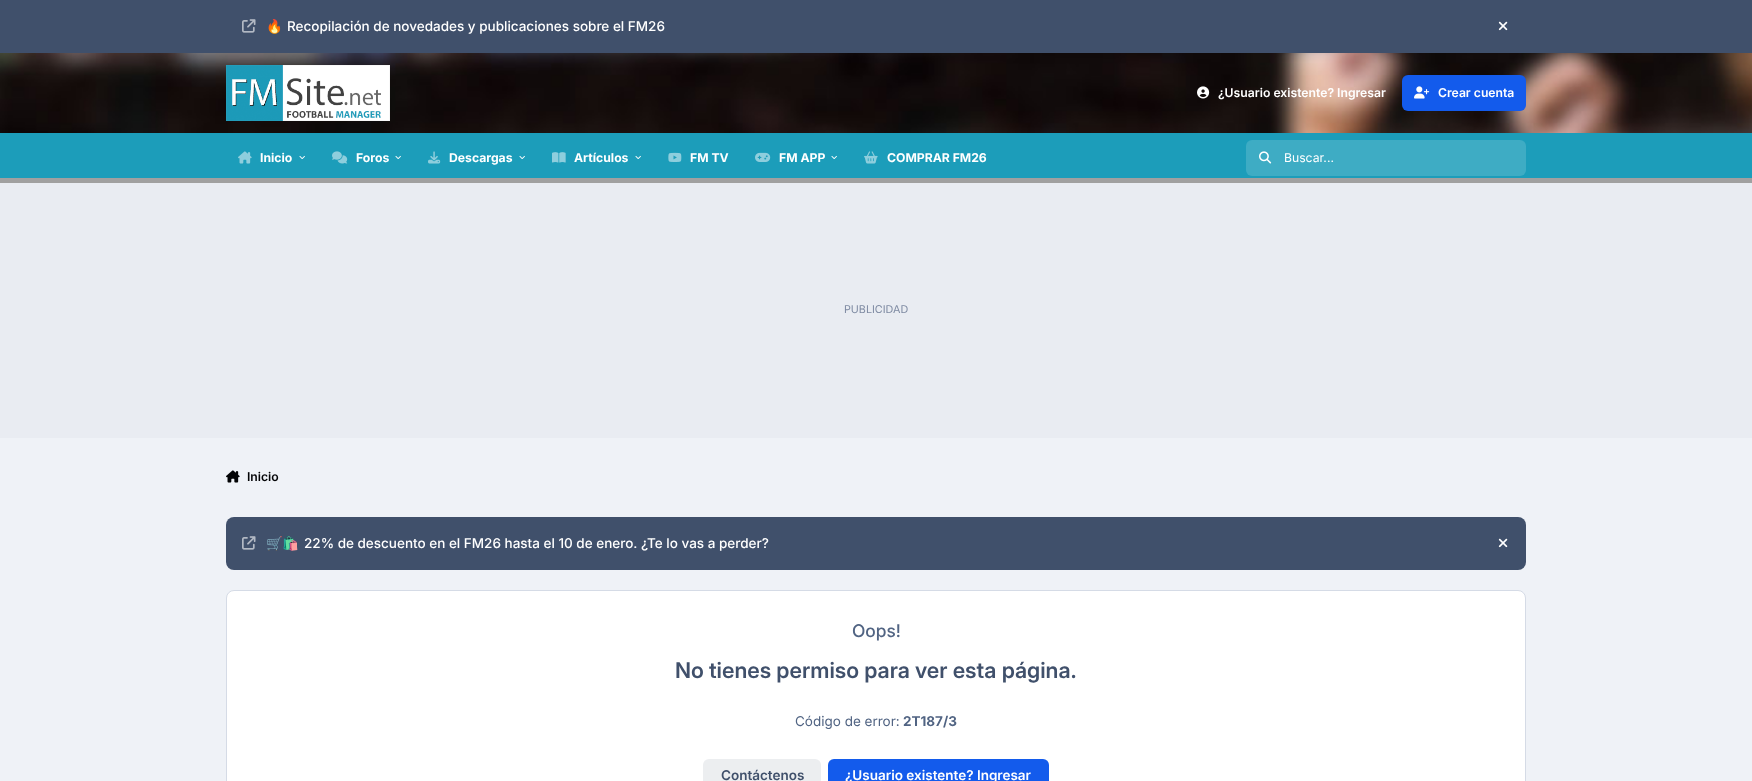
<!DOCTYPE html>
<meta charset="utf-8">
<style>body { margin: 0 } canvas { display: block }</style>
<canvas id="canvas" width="1752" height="781"></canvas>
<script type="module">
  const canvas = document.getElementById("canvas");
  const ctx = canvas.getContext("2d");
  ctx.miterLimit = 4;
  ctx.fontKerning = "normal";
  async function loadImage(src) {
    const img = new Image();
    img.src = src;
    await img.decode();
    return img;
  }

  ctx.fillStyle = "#eff2f7";
  ctx.fillRect(0, 0, 1752, 781);
  ctx.fillStyle = "#40506b";
  ctx.fillRect(0, 0, 1752, 53);
  ctx.drawImage(await loadImage("img1.png"), 242, 19, 14, 14);
  ctx.font = "13.5px Noto Color Emoji";
  ctx.fillStyle = "#ffffff";
  ctx.fillText("🔥", 266, 31);
  ctx.font = "500 13.5px Inter";
  ctx.fillText("Recopilación de novedades y publicaciones sobre el FM26", 287, 31);
  ctx.drawImage(await loadImage("img2.png"), 1498, 21, 10, 10);
  ctx.drawImage(await loadImage("img3.png"), 0, 53, 1752, 80);
  ctx.drawImage(await loadImage("img4.png"), 226, 65, 164, 56);
  ctx.drawImage(await loadImage("img5.png"), 1197, 86, 13, 13);
  ctx.font = "600 12.2px Inter";
  ctx.fillText("¿Usuario existente? Ingresar", 1218, 97);
  ctx.fillStyle = "#135bec";
  ctx.beginPath();
  ctx.roundRect(1402, 75, 124, 36, 6);
  ctx.fill();
  ctx.drawImage(await loadImage("img6.png"), 1414, 86, 16, 13);
  ctx.fillStyle = "#ffffff";
  ctx.fillText("Crear cuenta", 1438, 97);
  ctx.fillStyle = "#1c9dba";
  ctx.fillRect(0, 133, 1752, 45);
  ctx.drawImage(await loadImage("img7.png"), 238, 151, 14, 13);
  ctx.font = "bold 12.2px Inter";
  ctx.fillStyle = "#ffffff";
  ctx.fillText("Inicio", 260, 162);
  ctx.drawImage(await loadImage("img8.png"), 299, 155, 6, 4);
  ctx.drawImage(await loadImage("img9.png"), 332, 151, 16, 13);
  ctx.fillText("Foros", 356, 162);
  ctx.drawImage(await loadImage("img8.png"), 395, 155, 6, 4);
  ctx.drawImage(await loadImage("img10.png"), 428, 151, 13, 13);
  ctx.fillText("Descargas", 449, 162);
  ctx.drawImage(await loadImage("img8.png"), 519, 155, 6, 4);
  ctx.drawImage(await loadImage("img11.png"), 552, 152, 14, 11);
  ctx.fillText("Artículos", 574, 162);
  ctx.drawImage(await loadImage("img8.png"), 635, 155, 6, 4);
  ctx.drawImage(await loadImage("img12.png"), 668, 152, 14, 10);
  ctx.fillText("FM TV", 690, 162);
  ctx.drawImage(await loadImage("img13.png"), 755, 152, 16, 10);
  ctx.fillText("FM APP", 779, 162);
  ctx.drawImage(await loadImage("img8.png"), 831, 155, 6, 4);
  ctx.drawImage(await loadImage("img14.png"), 864, 151, 14, 13);
  ctx.fillText("COMPRAR FM26", 887, 162);
  ctx.fillStyle = "#3eacc4";
  ctx.beginPath();
  ctx.roundRect(1246, 140, 280, 36, 6);
  ctx.fill();
  ctx.drawImage(await loadImage("img15.png"), 1259, 151, 13, 13);
  ctx.font = "12.2px Inter";
  ctx.fillStyle = "#ffffff";
  ctx.fillText("Buscar...", 1284, 162);
  ctx.fillStyle = "#e9ecf2";
  ctx.fillRect(0, 183, 1752, 255);
  ctx.fillStyle = "#a0a0a0";
  ctx.fillRect(0, 178, 1752, 5);
  ctx.font = "10.75px Inter";
  ctx.fillStyle = "#7e8aa2";
  ctx.fillText("PUBLICIDAD", 844, 313);
  ctx.drawImage(await loadImage("img16.png"), 226, 470, 14, 13);
  ctx.font = "600 12.2px Inter";
  ctx.fillStyle = "#020305";
  ctx.fillText("Inicio", 247, 481);
  ctx.fillStyle = "#40506b";
  ctx.beginPath();
  ctx.roundRect(226, 517, 1300, 53, 8);
  ctx.fill();
  ctx.drawImage(await loadImage("img1.png"), 242, 536, 14, 14);
  ctx.font = "13.5px Noto Color Emoji";
  ctx.fillStyle = "#ffffff";
  ctx.fillText("🛒🛍️", 266, 548);
  ctx.font = "500 13.5px Inter";
  ctx.fillText("22% de descuento en el FM26 hasta el 10 de enero. ¿Te lo vas a perder?", 304, 548);
  ctx.drawImage(await loadImage("img2.png"), 1498, 538, 10, 10);
  ctx.beginPath();
  ctx.roundRect(226.5, 590.5, 1299, 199, 7.5);
  ctx.fill();
  ctx.strokeStyle = "#d5dbe6";
  ctx.stroke();
  ctx.font = "500 17.5px 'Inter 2'";
  ctx.fillStyle = "#516483";
  ctx.fillText("Oops!", 852, 637);
  ctx.font = "600 21.6px 'Inter 2'";
  ctx.fillStyle = "#40506b";
  ctx.fillText("No tienes permiso para ver esta página.", 675, 678);
  ctx.font = "13.5px Inter";
  ctx.fillStyle = "#516483";
  ctx.fillText("Código de error:", 795, 726);
  ctx.font = "bold 13.5px Inter";
  ctx.fillText("2T187/3", 903, 726);
  ctx.fillStyle = "#eceef0";
  ctx.beginPath();
  ctx.roundRect(703, 759, 118, 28, 6);
  ctx.fill();
  ctx.font = "600 13.5px Inter";
  ctx.fillStyle = "#40506b";
  ctx.fillText("Contáctenos", 721, 780);
  ctx.fillStyle = "#135bec";
  ctx.beginPath();
  ctx.roundRect(828, 759, 221, 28, 6);
  ctx.fill();
  ctx.fillStyle = "#ffffff";
  ctx.fillText("¿Usuario existente? Ingresar", 845, 780);
</script>
